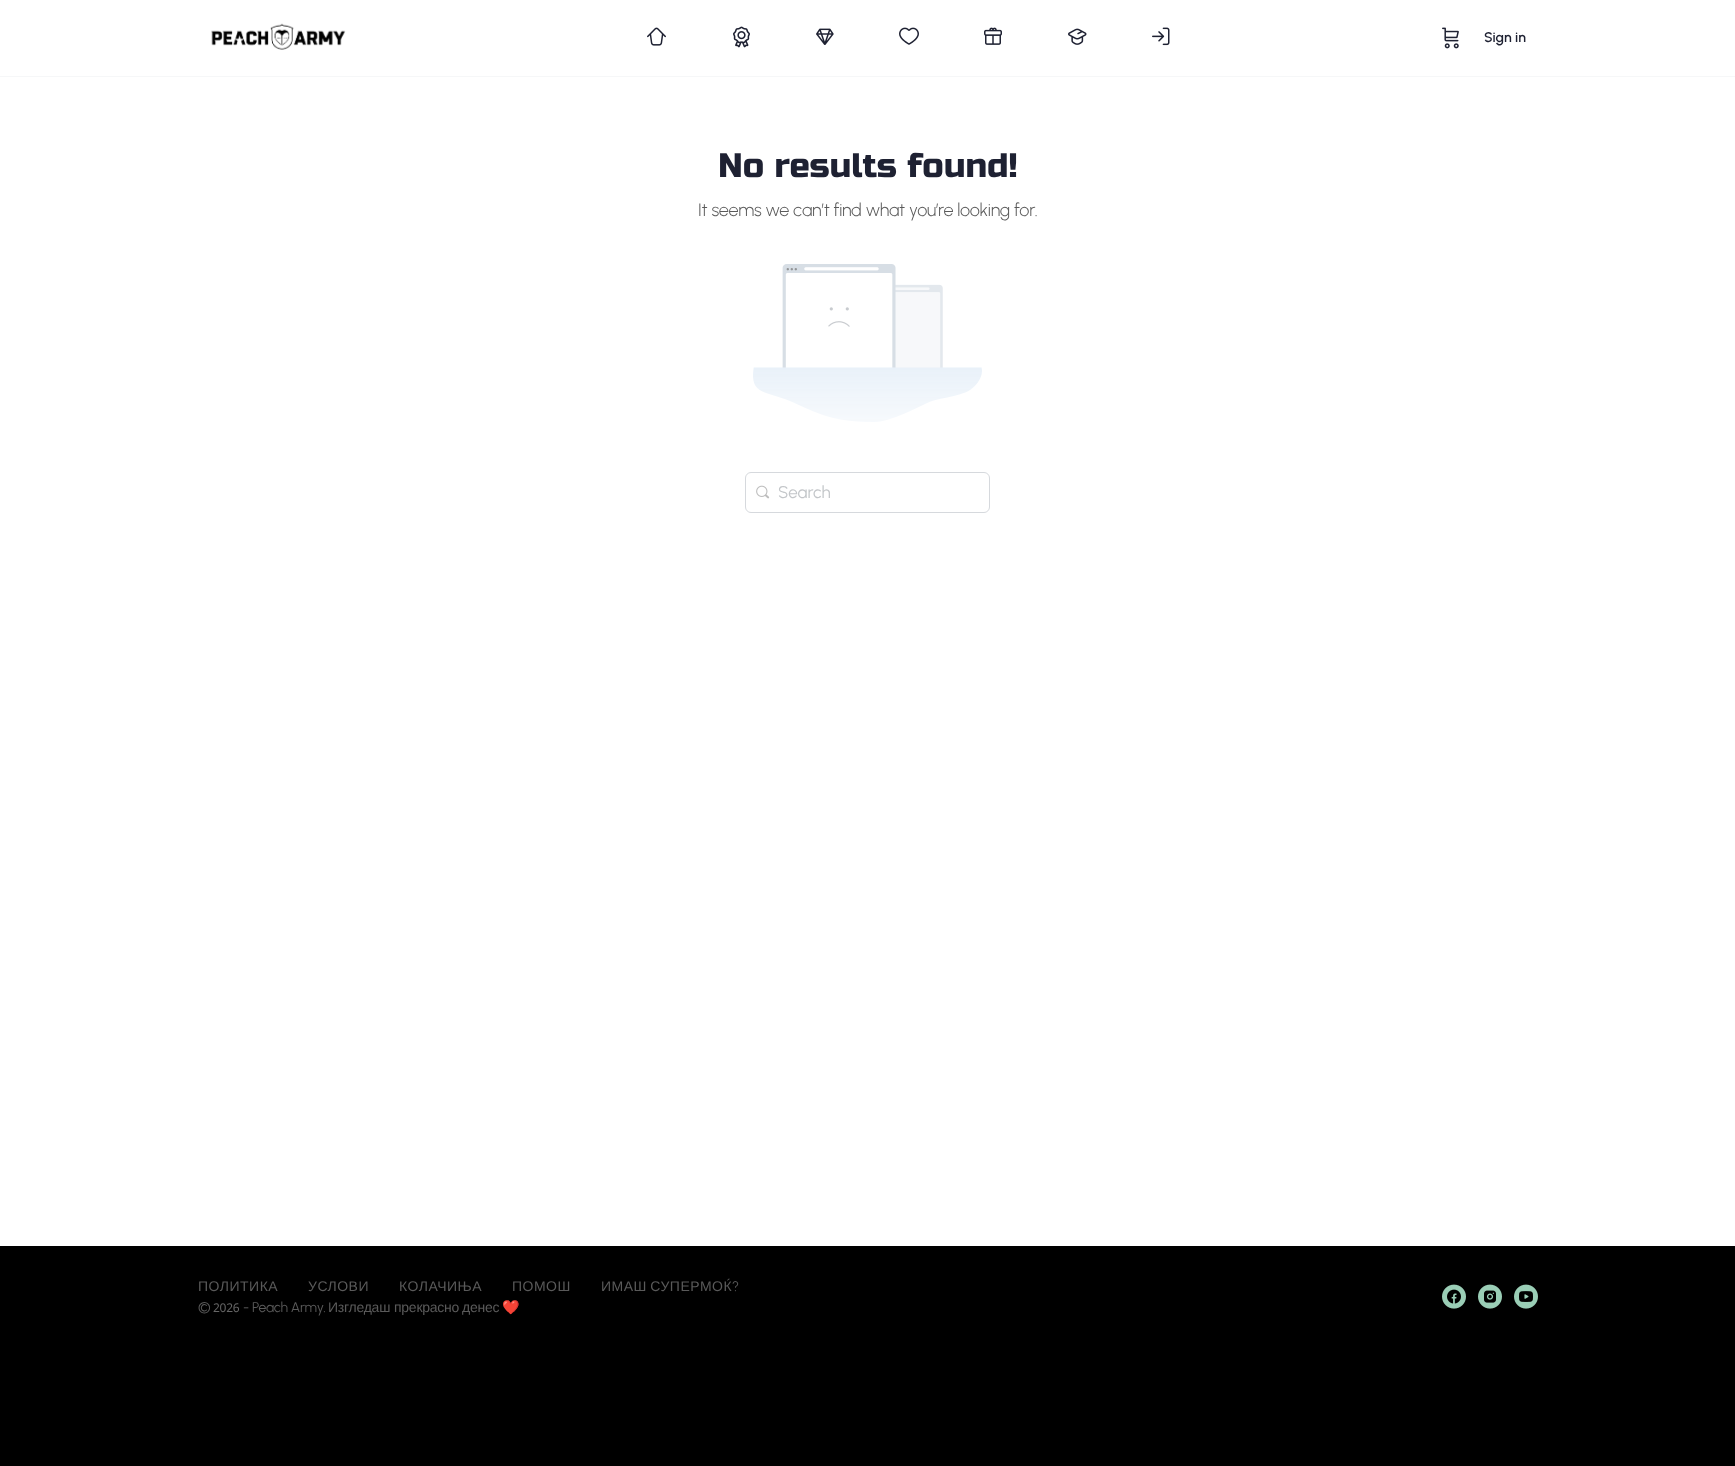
<!DOCTYPE html>
<meta charset="utf-8">
<style>body { margin: 0 } canvas { display: block }</style>
<canvas id="canvas" width="1735" height="1466"></canvas>
<script type="module">
  const canvas = document.getElementById("canvas");
  const ctx = canvas.getContext("2d");
  ctx.miterLimit = 4;
  ctx.fontKerning = "normal";
  async function loadImage(src) {
    const img = new Image();
    img.src = src;
    await img.decode();
    return img;
  }

  ctx.fillStyle = "#ffffff";
  ctx.fillRect(0, 0, 1735, 1466);
  ctx.fillStyle = "#f6f7f8";
  ctx.fillRect(0, 76, 1735, 1);
  ctx.drawImage(await loadImage("img1.png"), 211, 23, 135, 27);
  ctx.drawImage(await loadImage("img2.png"), 647, 27, 19, 19);
  ctx.drawImage(await loadImage("img3.png"), 733, 26, 17, 22);
  ctx.drawImage(await loadImage("img4.png"), 816, 28, 18, 17);
  ctx.drawImage(await loadImage("img5.png"), 899, 27, 20, 18);
  ctx.drawImage(await loadImage("img6.png"), 984, 27, 18, 18);
  ctx.drawImage(await loadImage("img7.png"), 1068, 28, 19, 17);
  ctx.drawImage(await loadImage("img8.png"), 1152, 27, 18, 19);
  ctx.drawImage(await loadImage("img9.png"), 1442, 27, 17, 22);
  ctx.font = "600 14px Urbanist";
  ctx.fillStyle = "#1e2132";
  ctx.fillText("Sign in", 1484, 42);
  ctx.font = "34px Russo One";
  ctx.fillText("No results found!", 718, 177);
  ctx.letterSpacing = "-0.25px";
  ctx.font = "300 18px Urbanist";
  ctx.fillStyle = "#5a5a5a";
  ctx.fillText("It seems we can’t find what you’re looking for.", 698, 216);
  ctx.drawImage(await loadImage("img10.png"), 753, 264, 229, 158);
  ctx.beginPath();
  ctx.roundRect(745.5, 472.5, 244, 40, 5.5);
  ctx.strokeStyle = "#d6d9dd";
  ctx.stroke();
  ctx.drawImage(await loadImage("img11.png"), 756, 485, 14, 14);
  ctx.letterSpacing = "0px";
  ctx.font = "17px Urbanist";
  ctx.fillStyle = "#c3c6c9";
  ctx.fillText("Search", 778, 498);
  ctx.fillStyle = "#000000";
  ctx.fillRect(0, 1246, 1735, 220);
  ctx.letterSpacing = "0.5px";
  ctx.font = "14px Liberation Sans";
  ctx.fillStyle = "#5a5a5a";
  ctx.fillText("ПОЛИТИКА", 198, 1291);
  ctx.fillText("УСЛОВИ", 308, 1291);
  ctx.fillText("КОЛАЧИЊА", 399, 1291);
  ctx.fillText("ПОМОШ", 512, 1291);
  ctx.wordSpacing = "-1px";
  ctx.fillText("ИМАШ СУПЕРМОЌ", 601, 1291);
  ctx.wordSpacing = "0px";
  ctx.font = "14px Urbanist";
  ctx.fillText("?", 732, 1291);
  ctx.letterSpacing = "-0.25px";
  ctx.fillText("©", 198, 1312);
  ctx.font = "12px Noto Sans";
  ctx.fillStyle = "#666666";
  ctx.fillText("2026", 213, 1312);
  ctx.font = "14px Urbanist";
  ctx.fillStyle = "#5a5a5a";
  ctx.fillText("- Peach Army.", 243, 1312);
  ctx.font = "14px Liberation Sans";
  ctx.fillText("Изгледаш", 328, 1312);
  ctx.fillText("прекрасно", 394, 1312);
  ctx.fillText("денес", 462, 1312);
  ctx.font = "14px Noto Color Emoji";
  ctx.fillText("❤️", 502, 1312);
  ctx.drawImage(await loadImage("img12.png"), 1442, 1284, 24, 25);
  ctx.drawImage(await loadImage("img13.png"), 1478, 1284, 24, 25);
  ctx.drawImage(await loadImage("img14.png"), 1514, 1284, 24, 25);
</script>
